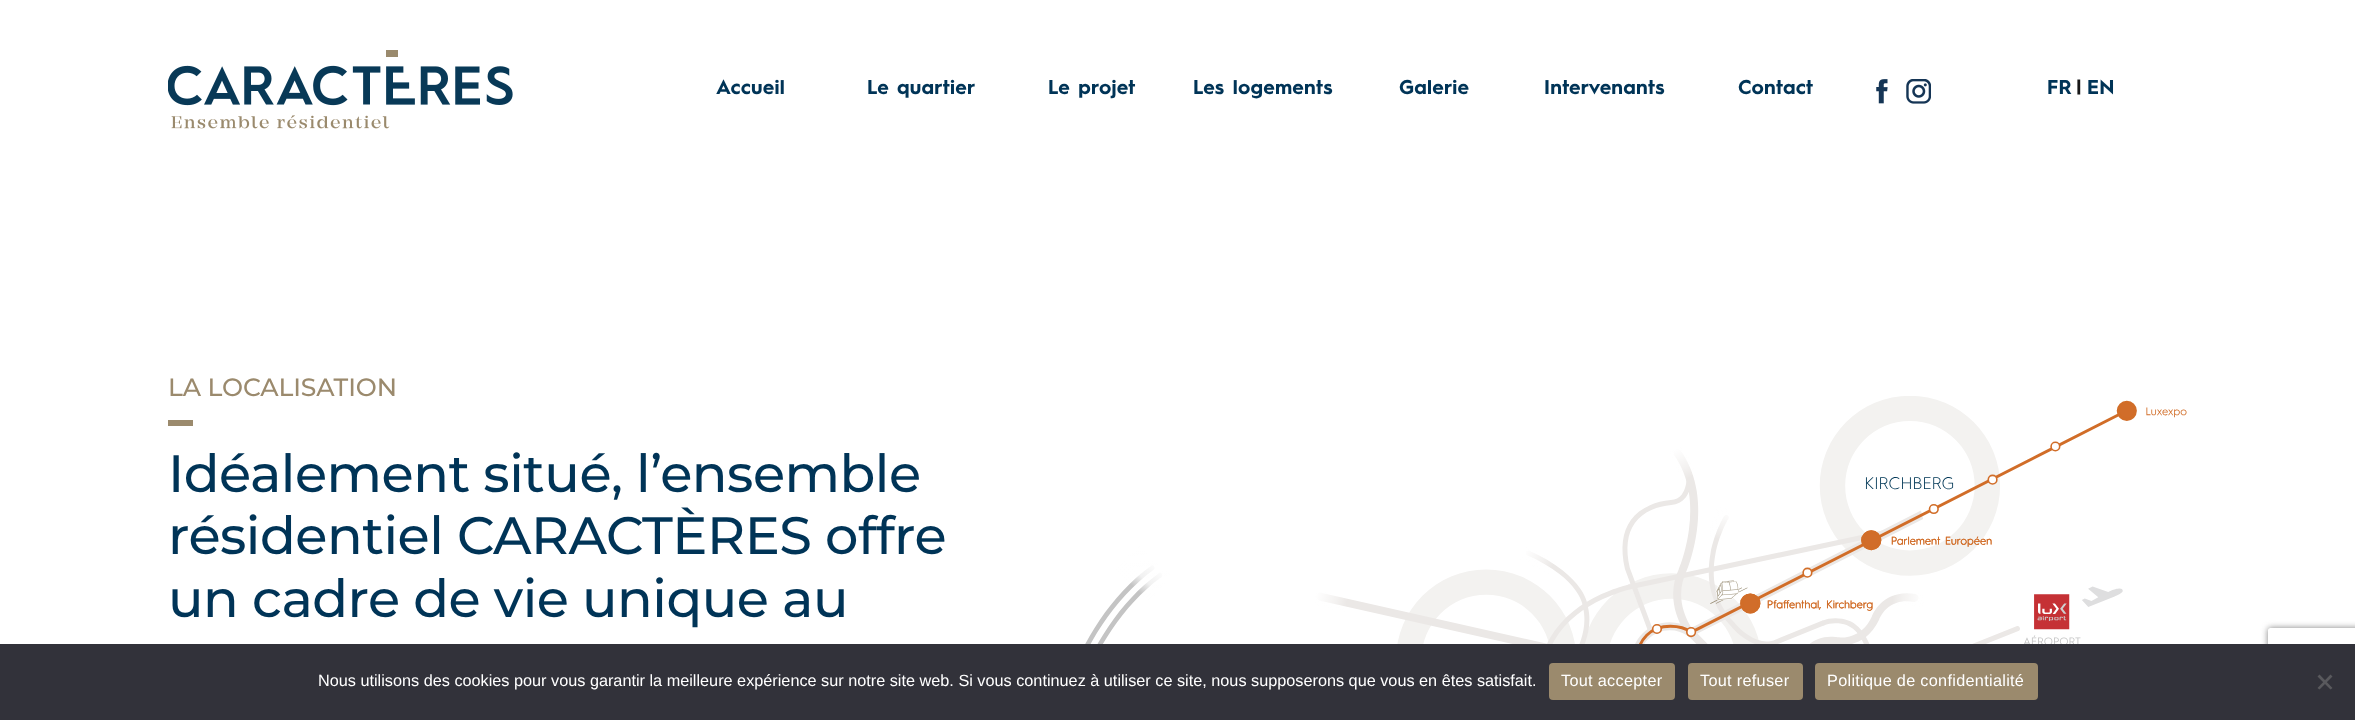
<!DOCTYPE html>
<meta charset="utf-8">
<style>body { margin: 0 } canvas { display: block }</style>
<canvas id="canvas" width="2355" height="720"></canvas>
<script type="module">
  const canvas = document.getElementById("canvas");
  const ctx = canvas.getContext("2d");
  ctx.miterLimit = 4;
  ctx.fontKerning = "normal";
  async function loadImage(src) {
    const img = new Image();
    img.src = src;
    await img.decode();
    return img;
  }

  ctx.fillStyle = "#ffffff";
  ctx.fillRect(0, 0, 2355, 720);
  ctx.drawImage(await loadImage("img1.png"), 168, 50, 345, 79);
  ctx.letterSpacing = "0.25px";
  ctx.font = "bold 20px 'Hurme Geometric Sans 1'";
  ctx.fillStyle = "#003457";
  ctx.fillText("Accueil", 716, 94);
  ctx.fillText("Le quartier", 867, 94);
  ctx.fillText("Le projet", 1048, 94);
  ctx.fillText("Les logements", 1193, 94);
  ctx.fillText("Galerie", 1399, 94);
  ctx.fillText("Intervenants", 1544, 94);
  ctx.fillText("Contact", 1738, 94);
  ctx.drawImage(await loadImage("img2.png"), 1876, 79, 12, 25);
  ctx.drawImage(await loadImage("img3.png"), 1906, 79, 25, 25);
  ctx.fillText("FR", 2047, 94);
  ctx.fillStyle = "#171717";
  ctx.fillText("|", 2076, 94);
  ctx.fillStyle = "#003457";
  ctx.fillText("EN", 2087, 94);
  ctx.letterSpacing = "-0.1px";
  ctx.font = "500 25px Montserrat";
  ctx.fillStyle = "#9b8a6d";
  ctx.fillText("LA LOCALISATION", 168, 396);
  ctx.fillRect(168, 420, 25, 6);
  ctx.letterSpacing = "-0.5px";
  ctx.font = "500 52.5px Montserrat";
  ctx.fillStyle = "#003457";
  ctx.fillText("Idéalement situé, l’ensemble", 168, 492);
  ctx.fillText("résidentiel CARACTÈRES offre", 168, 554);
  ctx.fillText("un cadre de vie unique au", 168, 617);
  ctx.drawImage(await loadImage("img4.png"), 1085, 396, 1102, 248);
  ctx.save();
  ctx.beginPath();
  ctx.moveTo(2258, 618);
  ctx.lineTo(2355, 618);
  ctx.lineTo(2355, 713);
  ctx.lineTo(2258, 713);
  ctx.closePath();
  ctx.moveTo(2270.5, 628);
  ctx.lineTo(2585.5, 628);
  ctx.bezierCurveTo(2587, 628, 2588, 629, 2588, 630.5);
  ctx.lineTo(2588, 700.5);
  ctx.bezierCurveTo(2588, 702, 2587, 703, 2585.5, 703);
  ctx.lineTo(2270.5, 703);
  ctx.bezierCurveTo(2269, 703, 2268, 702, 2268, 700.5);
  ctx.lineTo(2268, 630.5);
  ctx.bezierCurveTo(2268, 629, 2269, 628, 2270.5, 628);
  ctx.closePath();
  ctx.clip("evenodd");
  ctx.fillStyle = "#808080";
  ctx.filter = "blur(3px)";
  ctx.beginPath();
  ctx.roundRect(2268, 628, 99, 75, 2.5);
  ctx.fill();
  ctx.filter = "none";
  ctx.restore();
  ctx.fillStyle = "#32323a";
  ctx.fillRect(0, 644, 2355, 76);
  ctx.letterSpacing = "0px";
  ctx.font = "16.25px Liberation Sans";
  ctx.fillStyle = "#ffffff";
  ctx.fillText("Nous utilisons des cookies pour vous garantir la meilleure expérience sur notre site web. Si vous continuez à utiliser ce site, nous supposerons que vous en êtes satisfait.", 318, 686);
  ctx.fillStyle = "#9b8a6d";
  ctx.beginPath();
  ctx.roundRect(1549, 663, 126, 37, 4);
  ctx.fill();
  ctx.letterSpacing = "0.3px";
  ctx.fillStyle = "#ffffff";
  ctx.fillText("Tout accepter", 1561, 686);
  ctx.fillStyle = "#9b8a6d";
  ctx.beginPath();
  ctx.roundRect(1688, 663, 115, 37, 4);
  ctx.fill();
  ctx.fillStyle = "#ffffff";
  ctx.fillText("Tout refuser", 1700, 686);
  ctx.fillStyle = "#9b8a6d";
  ctx.beginPath();
  ctx.roundRect(1815, 663, 223, 37, 4);
  ctx.fill();
  ctx.fillStyle = "#ffffff";
  ctx.fillText("Politique de confidentialité", 1827, 686);
  ctx.fillStyle = "#59595d";
  ctx.beginPath();
  ctx.moveTo(2330.5, 674.5);
  ctx.lineTo(2332.5, 676.5);
  ctx.lineTo(2319.5, 689.5);
  ctx.lineTo(2317.5, 688);
  ctx.closePath();
  ctx.fill();
  ctx.beginPath();
  ctx.moveTo(2317.5, 676.5);
  ctx.lineTo(2319.5, 674.5);
  ctx.lineTo(2332.5, 688);
  ctx.lineTo(2330.5, 689.5);
  ctx.closePath();
  ctx.fill();
</script>
